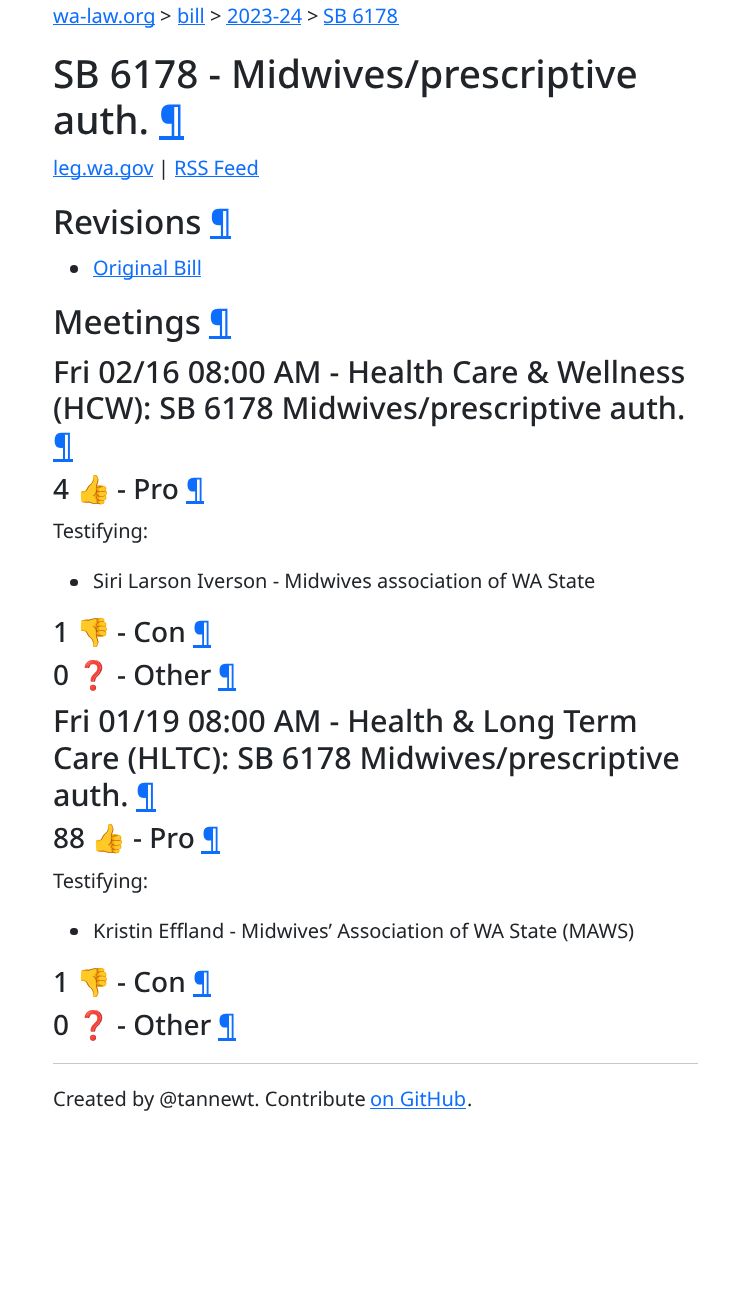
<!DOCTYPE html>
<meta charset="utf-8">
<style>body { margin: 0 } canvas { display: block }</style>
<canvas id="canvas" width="749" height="1303"></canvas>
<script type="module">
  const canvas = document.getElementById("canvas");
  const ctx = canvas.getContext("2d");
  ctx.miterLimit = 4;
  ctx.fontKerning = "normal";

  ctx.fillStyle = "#ffffff";
  ctx.fillRect(0, 0, 749, 1303);
  ctx.fillStyle = "#0d6efd";
  ctx.fillRect(53, 24, 102, 1);
  ctx.font = "20px Noto Sans";
  ctx.fillText("wa-law.org", 53, 23);
  ctx.fillStyle = "#212529";
  ctx.fillText(">", 160, 23);
  ctx.fillStyle = "#0d6efd";
  ctx.fillText("bill", 177, 23);
  ctx.fillRect(178, 24, 27, 1);
  ctx.fillStyle = "#212529";
  ctx.fillText(">", 210, 23);
  ctx.fillStyle = "#0d6efd";
  ctx.fillText("2023-24", 227, 23);
  ctx.fillRect(226, 24, 75, 1);
  ctx.fillStyle = "#212529";
  ctx.fillText(">", 307, 23);
  ctx.fillStyle = "#0d6efd";
  ctx.fillText("SB 6178", 323, 23);
  ctx.fillRect(324, 24, 75, 1);
  ctx.font = "500 38.75px Noto Sans";
  ctx.fillStyle = "#212529";
  ctx.fillText("SB 6178 - Midwives/prescriptive", 53, 88);
  ctx.fillText("auth.", 53, 134);
  ctx.fillStyle = "#0d6efd";
  ctx.fillRect(159, 136, 25, 4);
  ctx.fillText("¶", 159, 134);
  ctx.fillRect(53, 176, 100, 1);
  ctx.font = "20px Noto Sans";
  ctx.fillText("leg.wa.gov", 53, 175);
  ctx.fillStyle = "#212529";
  ctx.fillText("|", 158, 175);
  ctx.fillStyle = "#0d6efd";
  ctx.fillText("RSS Feed", 174, 175);
  ctx.fillRect(175, 176, 84, 1);
  ctx.font = "500 33.25px Noto Sans";
  ctx.fillStyle = "#212529";
  ctx.fillText("Revisions", 53, 234);
  ctx.fillStyle = "#0d6efd";
  ctx.fillRect(210, 236, 21, 3);
  ctx.fillText("¶", 210, 234);
  ctx.fillStyle = "#212529";
  ctx.beginPath();
  ctx.arc(74, 269, 4, 0, Math.PI * 2);
  ctx.fill();
  ctx.fillStyle = "#0d6efd";
  ctx.fillRect(93, 276, 108, 1);
  ctx.font = "20px Noto Sans";
  ctx.fillText("Original Bill", 93, 275);
  ctx.font = "500 33.25px Noto Sans";
  ctx.fillStyle = "#212529";
  ctx.fillText("Meetings", 53, 334);
  ctx.fillStyle = "#0d6efd";
  ctx.fillRect(209, 336, 22, 3);
  ctx.fillText("¶", 209, 334);
  ctx.font = "500 30.5px Noto Sans";
  ctx.fillStyle = "#212529";
  ctx.fillText("Fri 02/16 08:00 AM - Health Care & Wellness", 53, 383);
  ctx.fillText("(HCW): SB 6178 Midwives/prescriptive auth.", 53, 419);
  ctx.fillStyle = "#0d6efd";
  ctx.fillRect(53, 459, 20, 3);
  ctx.fillText("¶", 53, 456);
  ctx.font = "500 28px Noto Sans";
  ctx.fillStyle = "#212529";
  ctx.fillText("4", 53, 499);
  ctx.font = "28px Noto Color Emoji";
  ctx.fillText("👍", 76, 499);
  ctx.font = "500 28px Noto Sans";
  ctx.fillText("- Pro", 117, 499);
  ctx.fillStyle = "#0d6efd";
  ctx.fillRect(186, 501, 18, 3);
  ctx.fillText("¶", 186, 499);
  ctx.font = "20px Noto Sans";
  ctx.fillStyle = "#212529";
  ctx.fillText("Testifying:", 53, 538);
  ctx.beginPath();
  ctx.roundRect(70, 579, 8, 7, 3.5);
  ctx.fill();
  ctx.fillText("Siri Larson Iverson - Midwives association of WA State", 93, 588);
  ctx.font = "500 28px Noto Sans";
  ctx.fillText("1", 53, 642);
  ctx.font = "28px Noto Color Emoji";
  ctx.fillText("👎", 76, 642);
  ctx.font = "500 28px Noto Sans";
  ctx.fillText("- Con", 117, 642);
  ctx.fillStyle = "#0d6efd";
  ctx.fillRect(193, 645, 18, 3);
  ctx.fillText("¶", 193, 642);
  ctx.fillStyle = "#212529";
  ctx.fillText("0", 53, 685);
  ctx.font = "28px Noto Color Emoji";
  ctx.fillText("❓", 76, 685);
  ctx.font = "500 28px Noto Sans";
  ctx.fillText("- Other", 117, 685);
  ctx.fillStyle = "#0d6efd";
  ctx.fillRect(218, 688, 18, 3);
  ctx.fillText("¶", 218, 685);
  ctx.font = "500 30.5px Noto Sans";
  ctx.fillStyle = "#212529";
  ctx.fillText("Fri 01/19 08:00 AM - Health & Long Term", 53, 732);
  ctx.fillText("Care (HLTC): SB 6178 Midwives/prescriptive", 53, 769);
  ctx.fillText("auth.", 53, 806);
  ctx.fillStyle = "#0d6efd";
  ctx.fillRect(136, 809, 20, 3);
  ctx.fillText("¶", 136, 806);
  ctx.font = "500 28px Noto Sans";
  ctx.fillStyle = "#212529";
  ctx.fillText("88", 53, 848);
  ctx.font = "28px Noto Color Emoji";
  ctx.fillText("👍", 91, 848);
  ctx.font = "500 28px Noto Sans";
  ctx.fillText("- Pro", 133, 848);
  ctx.fillStyle = "#0d6efd";
  ctx.fillRect(201, 851, 19, 3);
  ctx.fillText("¶", 202, 848);
  ctx.font = "20px Noto Sans";
  ctx.fillStyle = "#212529";
  ctx.fillText("Testifying:", 53, 888);
  ctx.beginPath();
  ctx.roundRect(70, 928, 8, 7, 3.5);
  ctx.fill();
  ctx.fillText("Kristin Effland - Midwives’ Association of WA State (MAWS)", 93, 938);
  ctx.font = "500 28px Noto Sans";
  ctx.fillText("1", 53, 992);
  ctx.font = "28px Noto Color Emoji";
  ctx.fillText("👎", 76, 992);
  ctx.font = "500 28px Noto Sans";
  ctx.fillText("- Con", 117, 992);
  ctx.fillStyle = "#0d6efd";
  ctx.fillRect(193, 994, 18, 3);
  ctx.fillText("¶", 193, 992);
  ctx.fillStyle = "#212529";
  ctx.fillText("0", 53, 1035);
  ctx.font = "28px Noto Color Emoji";
  ctx.fillText("❓", 76, 1035);
  ctx.font = "500 28px Noto Sans";
  ctx.fillText("- Other", 117, 1035);
  ctx.fillStyle = "#0d6efd";
  ctx.fillRect(218, 1038, 18, 3);
  ctx.fillText("¶", 218, 1035);
  ctx.fillStyle = "#c8c9ca";
  ctx.fillRect(53, 1063, 645, 1);
  ctx.font = "20px Noto Sans";
  ctx.fillStyle = "#212529";
  ctx.fillText("Created by @tannewt. Contribute", 53, 1106);
  ctx.fillStyle = "#0d6efd";
  ctx.fillText("on GitHub", 370, 1106);
  ctx.fillRect(370, 1108, 96, 1);
  ctx.fillStyle = "#212529";
  ctx.fillText(".", 467, 1106);
</script>
